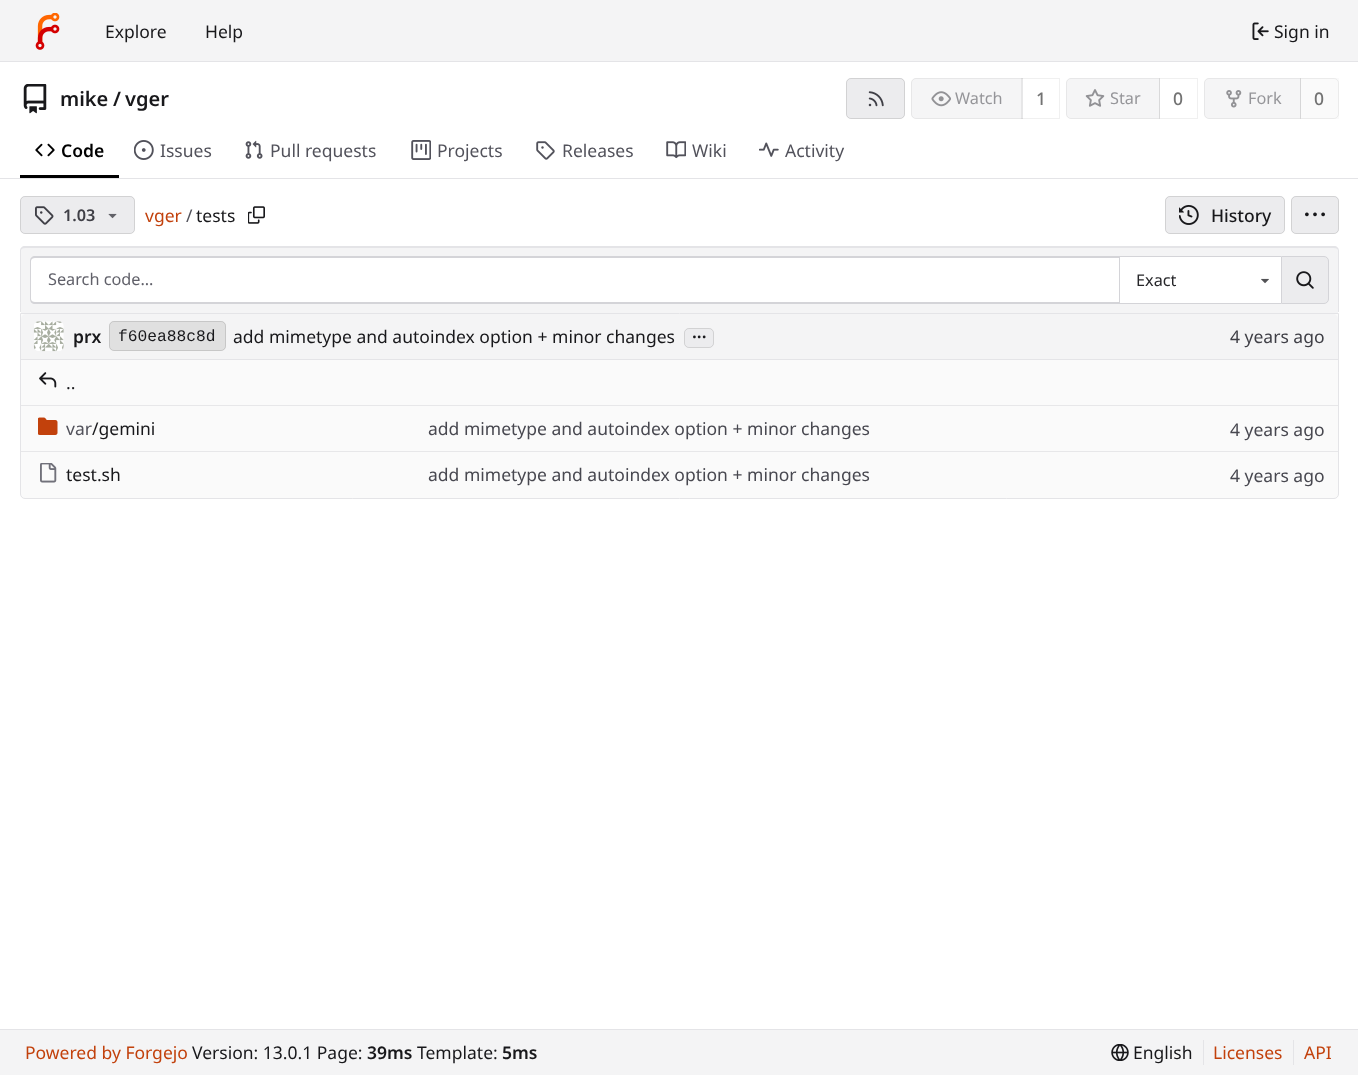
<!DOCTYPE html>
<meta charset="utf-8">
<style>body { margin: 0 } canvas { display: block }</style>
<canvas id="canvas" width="1358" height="1075"></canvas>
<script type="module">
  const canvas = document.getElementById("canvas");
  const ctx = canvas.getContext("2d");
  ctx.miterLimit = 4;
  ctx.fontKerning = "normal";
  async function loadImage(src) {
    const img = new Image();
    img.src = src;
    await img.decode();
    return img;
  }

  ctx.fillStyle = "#ffffff";
  ctx.fillRect(0, 0, 1358, 1075);
  ctx.fillStyle = "#f4f4f5";
  ctx.fillRect(0, 0, 1358, 61);
  ctx.fillStyle = "#e4e4e7";
  ctx.fillRect(0, 61, 1358, 1);
  ctx.drawImage(await loadImage("img1.png"), 35, 13, 25, 37);
  ctx.font = "17.5px Noto Sans";
  ctx.fillStyle = "#18181b";
  ctx.fillText("Explore", 105, 38);
  ctx.fillText("Help", 205, 38);
  ctx.drawImage(await loadImage("img2.png"), 1252, 22, 17, 18);
  ctx.fillText("Sign in", 1274, 38);
  ctx.drawImage(await loadImage("img3.png"), 23, 84, 24, 30);
  ctx.font = "600 20px Noto Sans";
  ctx.fillText("mike", 60, 106);
  ctx.fillText("/", 113, 106);
  ctx.fillText("vger", 125, 106);
  ctx.fillStyle = "#ececee";
  ctx.beginPath();
  ctx.roundRect(846, 78, 59, 41, 5);
  ctx.fill();
  ctx.beginPath();
  ctx.roundRect(846.5, 78.5, 58, 40, 4.5);
  ctx.strokeStyle = "rgba(0, 0, 0, 0.11)";
  ctx.stroke();
  ctx.drawImage(await loadImage("img4.png"), 868, 91, 16, 16);
  ctx.fillStyle = "#f5f5f6";
  ctx.beginPath();
  ctx.roundRect(911, 78, 112, 41, [5, 0, 0, 5]);
  ctx.fill();
  ctx.beginPath();
  ctx.roundRect(911.5, 78.5, 111, 40, [4.5, 0, 0, 4.5]);
  ctx.strokeStyle = "rgba(115, 115, 115, 0.11)";
  ctx.stroke();
  ctx.drawImage(await loadImage("img5.png"), 931, 91, 20, 16);
  ctx.font = "16.25px Noto Sans";
  ctx.fillStyle = "#959599";
  ctx.fillText("Watch", 955, 104);
  ctx.strokeStyle = "rgba(0, 0, 0, 0.06)";
  ctx.strokeRect(1021.5, 78.5, 38, 40);
  ctx.font = "500 17.5px Noto Sans";
  ctx.fillStyle = "#737373";
  ctx.fillText("1", 1036, 105);
  ctx.fillStyle = "#f5f5f6";
  ctx.beginPath();
  ctx.roundRect(1066, 78, 94, 41, [5, 0, 0, 5]);
  ctx.fill();
  ctx.beginPath();
  ctx.roundRect(1066.5, 78.5, 93, 40, [4.5, 0, 0, 4.5]);
  ctx.strokeStyle = "rgba(115, 115, 115, 0.11)";
  ctx.stroke();
  ctx.drawImage(await loadImage("img6.png"), 1085, 89, 20, 18);
  ctx.font = "16.25px Noto Sans";
  ctx.fillStyle = "#959599";
  ctx.fillText("Star", 1110, 104);
  ctx.strokeStyle = "rgba(0, 0, 0, 0.06)";
  ctx.strokeRect(1159.5, 78.5, 38, 40);
  ctx.font = "500 17.5px Noto Sans";
  ctx.fillStyle = "#737373";
  ctx.fillText("0", 1173, 105);
  ctx.fillStyle = "#f5f5f6";
  ctx.beginPath();
  ctx.roundRect(1204, 78, 97, 41, [5, 0, 0, 5]);
  ctx.fill();
  ctx.beginPath();
  ctx.roundRect(1204.5, 78.5, 96, 40, [4.5, 0, 0, 4.5]);
  ctx.strokeStyle = "rgba(115, 115, 115, 0.11)";
  ctx.stroke();
  ctx.drawImage(await loadImage("img7.png"), 1226, 90, 16, 18);
  ctx.font = "16.25px Noto Sans";
  ctx.fillStyle = "#959599";
  ctx.fillText("Fork", 1248, 104);
  ctx.fillStyle = "rgba(115, 115, 115, 0.04)";
  ctx.fillRect(1300, 78, 39, 41);
  ctx.beginPath();
  ctx.roundRect(1300.5, 78.5, 38, 40, [0, 4.5, 4.5, 0]);
  ctx.stroke();
  ctx.font = "500 17.5px Noto Sans";
  ctx.fillStyle = "#737373";
  ctx.fillText("0", 1314, 105);
  ctx.fillStyle = "#000000";
  ctx.fillRect(20, 175, 99, 3);
  ctx.drawImage(await loadImage("img8.png"), 35, 143, 20, 14);
  ctx.font = "600 17.5px Noto Sans";
  ctx.fillText("Code", 61, 157);
  ctx.drawImage(await loadImage("img9.png"), 134, 140, 20, 20);
  ctx.font = "17.5px Noto Sans";
  ctx.fillStyle = "#52525b";
  ctx.fillText("Issues", 160, 157);
  ctx.drawImage(await loadImage("img10.png"), 245, 140, 18, 19);
  ctx.fillText("Pull requests", 270, 157);
  ctx.drawImage(await loadImage("img11.png"), 411, 140, 20, 20);
  ctx.fillText("Projects", 437, 157);
  ctx.drawImage(await loadImage("img12.png"), 536, 141, 19, 19);
  ctx.fillText("Releases", 562, 157);
  ctx.drawImage(await loadImage("img13.png"), 666, 141, 20, 18);
  ctx.fillText("Wiki", 692, 157);
  ctx.drawImage(await loadImage("img14.png"), 759, 142, 20, 15);
  ctx.fillText("Activity", 785, 157);
  ctx.fillStyle = "#e4e4e7";
  ctx.fillRect(0, 178, 1358, 1);
  ctx.fillStyle = "#ececee";
  ctx.beginPath();
  ctx.roundRect(20, 196, 115, 38, 5);
  ctx.fill();
  ctx.beginPath();
  ctx.roundRect(20.5, 196.5, 114, 37, 4.5);
  ctx.strokeStyle = "rgba(0, 0, 0, 0.11)";
  ctx.stroke();
  ctx.drawImage(await loadImage("img15.png"), 35, 206, 19, 19);
  ctx.font = "600 16.25px Noto Sans";
  ctx.fillStyle = "#3f3f46";
  ctx.fillText("1.03", 63, 221);
  ctx.drawImage(await loadImage("img16.png"), 108, 213, 9, 6);
  ctx.font = "17.5px Noto Sans";
  ctx.fillStyle = "#c2410c";
  ctx.fillText("vger", 145, 222);
  ctx.fillStyle = "#52525b";
  ctx.fillText("/", 186, 222);
  ctx.fillStyle = "#18181b";
  ctx.fillText("tests", 196, 222);
  ctx.drawImage(await loadImage("img17.png"), 248, 206, 17, 18);
  ctx.fillStyle = "#ececee";
  ctx.beginPath();
  ctx.roundRect(1165, 196, 120, 38, 5);
  ctx.fill();
  ctx.beginPath();
  ctx.roundRect(1165.5, 196.5, 119, 37, 4.5);
  ctx.stroke();
  ctx.drawImage(await loadImage("img18.png"), 1179, 205, 20, 20);
  ctx.font = "500 17.5px Noto Sans";
  ctx.fillStyle = "#18181b";
  ctx.fillText("History", 1211, 222);
  ctx.fillStyle = "#ececee";
  ctx.beginPath();
  ctx.roundRect(1291, 196, 48, 38, 5);
  ctx.fill();
  ctx.beginPath();
  ctx.roundRect(1291.5, 196.5, 47, 37, 4.5);
  ctx.stroke();
  ctx.drawImage(await loadImage("img19.png"), 1305, 212, 20, 5);
  ctx.fillStyle = "#f4f4f5";
  ctx.beginPath();
  ctx.roundRect(21, 248, 1317, 65, [4, 4, 0, 0]);
  ctx.fill();
  ctx.fillStyle = "#e4e4e7";
  ctx.beginPath();
  ctx.moveTo(25, 246);
  ctx.lineTo(1334, 246);
  ctx.bezierCurveTo(1337, 246, 1339, 248, 1339, 251);
  ctx.lineTo(1339, 312);
  ctx.lineTo(20, 312);
  ctx.lineTo(20, 251);
  ctx.bezierCurveTo(20, 248, 22, 246, 25, 246);
  ctx.closePath();
  ctx.moveTo(25, 248);
  ctx.lineTo(1334, 248);
  ctx.bezierCurveTo(1336, 248, 1338, 249, 1338, 251);
  ctx.lineTo(1338, 312);
  ctx.lineTo(21, 312);
  ctx.lineTo(21, 251);
  ctx.bezierCurveTo(21, 249, 23, 248, 25, 248);
  ctx.closePath();
  ctx.fill("evenodd");
  ctx.fillStyle = "#ffffff";
  ctx.beginPath();
  ctx.roundRect(30, 256, 1089, 48, [5, 0, 0, 5]);
  ctx.fill();
  ctx.fillStyle = "#d4d4d8";
  ctx.beginPath();
  ctx.moveTo(35, 256);
  ctx.lineTo(1119, 256);
  ctx.lineTo(1119, 304);
  ctx.lineTo(35, 304);
  ctx.bezierCurveTo(32, 304, 30, 302, 30, 299);
  ctx.lineTo(30, 261);
  ctx.bezierCurveTo(30, 258, 32, 256, 35, 256);
  ctx.closePath();
  ctx.moveTo(35, 258);
  ctx.lineTo(1119, 258);
  ctx.lineTo(1119, 302);
  ctx.lineTo(35, 302);
  ctx.bezierCurveTo(33, 302, 31, 301, 31, 299);
  ctx.lineTo(31, 261);
  ctx.bezierCurveTo(31, 259, 33, 258, 35, 258);
  ctx.closePath();
  ctx.fill("evenodd");
  ctx.font = "16.25px Noto Sans";
  ctx.fillStyle = "#61616a";
  ctx.fillText("Search code…", 48, 285);
  ctx.fillStyle = "#ffffff";
  ctx.fillRect(1120, 257, 161, 46);
  ctx.fillStyle = "#d4d4d8";
  ctx.fillRect(1119, 256, 162, 1);
  ctx.fillRect(1119, 303, 162, 1);
  ctx.fillRect(1119, 256, 1, 48);
  ctx.fillStyle = "#27272a";
  ctx.fillText("Exact", 1136, 286);
  ctx.drawImage(await loadImage("img20.png"), 1261, 278, 8, 6);
  ctx.fillStyle = "#ececee";
  ctx.beginPath();
  ctx.roundRect(1281.5, 256.5, 47, 47, [0, 4.5, 4.5, 0]);
  ctx.fill();
  ctx.strokeStyle = "#d4d4d8";
  ctx.stroke();
  ctx.drawImage(await loadImage("img21.png"), 1296, 271, 18, 18);
  ctx.fillStyle = "#fafafa";
  ctx.beginPath();
  ctx.roundRect(20.5, 313.5, 1318, 185, [0, 0, 4.5, 4.5]);
  ctx.fill();
  ctx.strokeStyle = "#e4e4e7";
  ctx.stroke();
  ctx.fillStyle = "#f4f4f5";
  ctx.beginPath();
  ctx.roundRect(21, 314, 1203, 46, [5, 0, 0, 0]);
  ctx.fill();
  ctx.fillStyle = "#e4e4e7";
  ctx.fillRect(21, 359, 1203, 1);
  ctx.drawImage(await loadImage("img22.png"), 33, 321, 31, 31);
  ctx.font = "600 17.5px Noto Sans";
  ctx.fillStyle = "#18181b";
  ctx.fillText("prx", 73, 343);
  ctx.fillStyle = "#e0e0e0";
  ctx.beginPath();
  ctx.roundRect(109, 321, 117, 30, 5);
  ctx.fill();
  ctx.beginPath();
  ctx.roundRect(109.5, 321.5, 116, 29, 4.5);
  ctx.strokeStyle = "rgba(0, 0, 0, 0.11)";
  ctx.stroke();
  ctx.font = "16.25px Liberation Mono";
  ctx.fillStyle = "#18181b";
  ctx.fillText("f60ea88c8d", 118, 341);
  ctx.font = "17.5px Noto Sans";
  ctx.fillText("add mimetype and autoindex option + minor changes", 233, 343);
  ctx.fillStyle = "#ececee";
  ctx.beginPath();
  ctx.roundRect(684, 328, 30, 20, 5);
  ctx.fill();
  ctx.beginPath();
  ctx.roundRect(684.5, 328.5, 29, 19, 4.5);
  ctx.stroke();
  ctx.font = "600 17.5px Noto Sans";
  ctx.fillStyle = "#18181b";
  ctx.fillText("...", 692, 338);
  ctx.fillStyle = "#f4f4f5";
  ctx.beginPath();
  ctx.roundRect(1224, 314, 114, 46, [0, 5, 0, 0]);
  ctx.fill();
  ctx.fillStyle = "#e4e4e7";
  ctx.fillRect(1224, 359, 114, 1);
  ctx.font = "17.5px Noto Sans";
  ctx.fillStyle = "#3f3f46";
  ctx.fillText("4 years ago", 1230, 343);
  ctx.drawImage(await loadImage("img23.png"), 39, 372, 18, 16);
  ctx.fillStyle = "#18181b";
  ctx.fillText("..", 66, 389);
  ctx.fillStyle = "#e7e7e9";
  ctx.fillRect(21, 405, 1317, 1);
  ctx.drawImage(await loadImage("img24.png"), 38, 417, 20, 18);
  ctx.fillStyle = "#52525b";
  ctx.fillText("var", 66, 435);
  ctx.fillStyle = "#18181b";
  ctx.fillText("/gemini", 92, 435);
  ctx.fillStyle = "#484850";
  ctx.fillText("add mimetype and autoindex option + minor changes", 428, 435);
  ctx.fillText("4 years ago", 1230, 436);
  ctx.fillStyle = "#e7e7e9";
  ctx.fillRect(21, 451, 1317, 1);
  ctx.drawImage(await loadImage("img25.png"), 40, 463, 17, 20);
  ctx.fillStyle = "#18181b";
  ctx.fillText("test.sh", 66, 481);
  ctx.fillStyle = "#484850";
  ctx.fillText("add mimetype and autoindex option + minor changes", 428, 481);
  ctx.fillText("4 years ago", 1230, 482);
  ctx.fillStyle = "#f4f4f5";
  ctx.fillRect(0, 1030, 1358, 45);
  ctx.fillStyle = "#e4e4e7";
  ctx.fillRect(0, 1029, 1358, 1);
  ctx.fillStyle = "#c2410c";
  ctx.fillText("Powered by Forgejo", 25, 1059);
  ctx.fillStyle = "#18181b";
  ctx.fillText("Version: 13.0.1 Page:", 192, 1059);
  ctx.font = "600 17.5px Noto Sans";
  ctx.fillText("39ms", 367, 1059);
  ctx.font = "17.5px Noto Sans";
  ctx.fillText("Template:", 417, 1059);
  ctx.font = "600 17.5px Noto Sans";
  ctx.fillText("5ms", 502, 1059);
  ctx.drawImage(await loadImage("img26.png"), 1111, 1044, 18, 17);
  ctx.font = "17.5px Noto Sans";
  ctx.fillText("English", 1133, 1059);
  ctx.fillStyle = "#e4e4e7";
  ctx.fillRect(1203, 1040, 1, 25);
  ctx.fillStyle = "#c2410c";
  ctx.fillText("Licenses", 1213, 1059);
  ctx.fillStyle = "#e4e4e7";
  ctx.fillRect(1293, 1040, 1, 25);
  ctx.fillStyle = "#c2410c";
  ctx.fillText("API", 1304, 1059);
</script>
